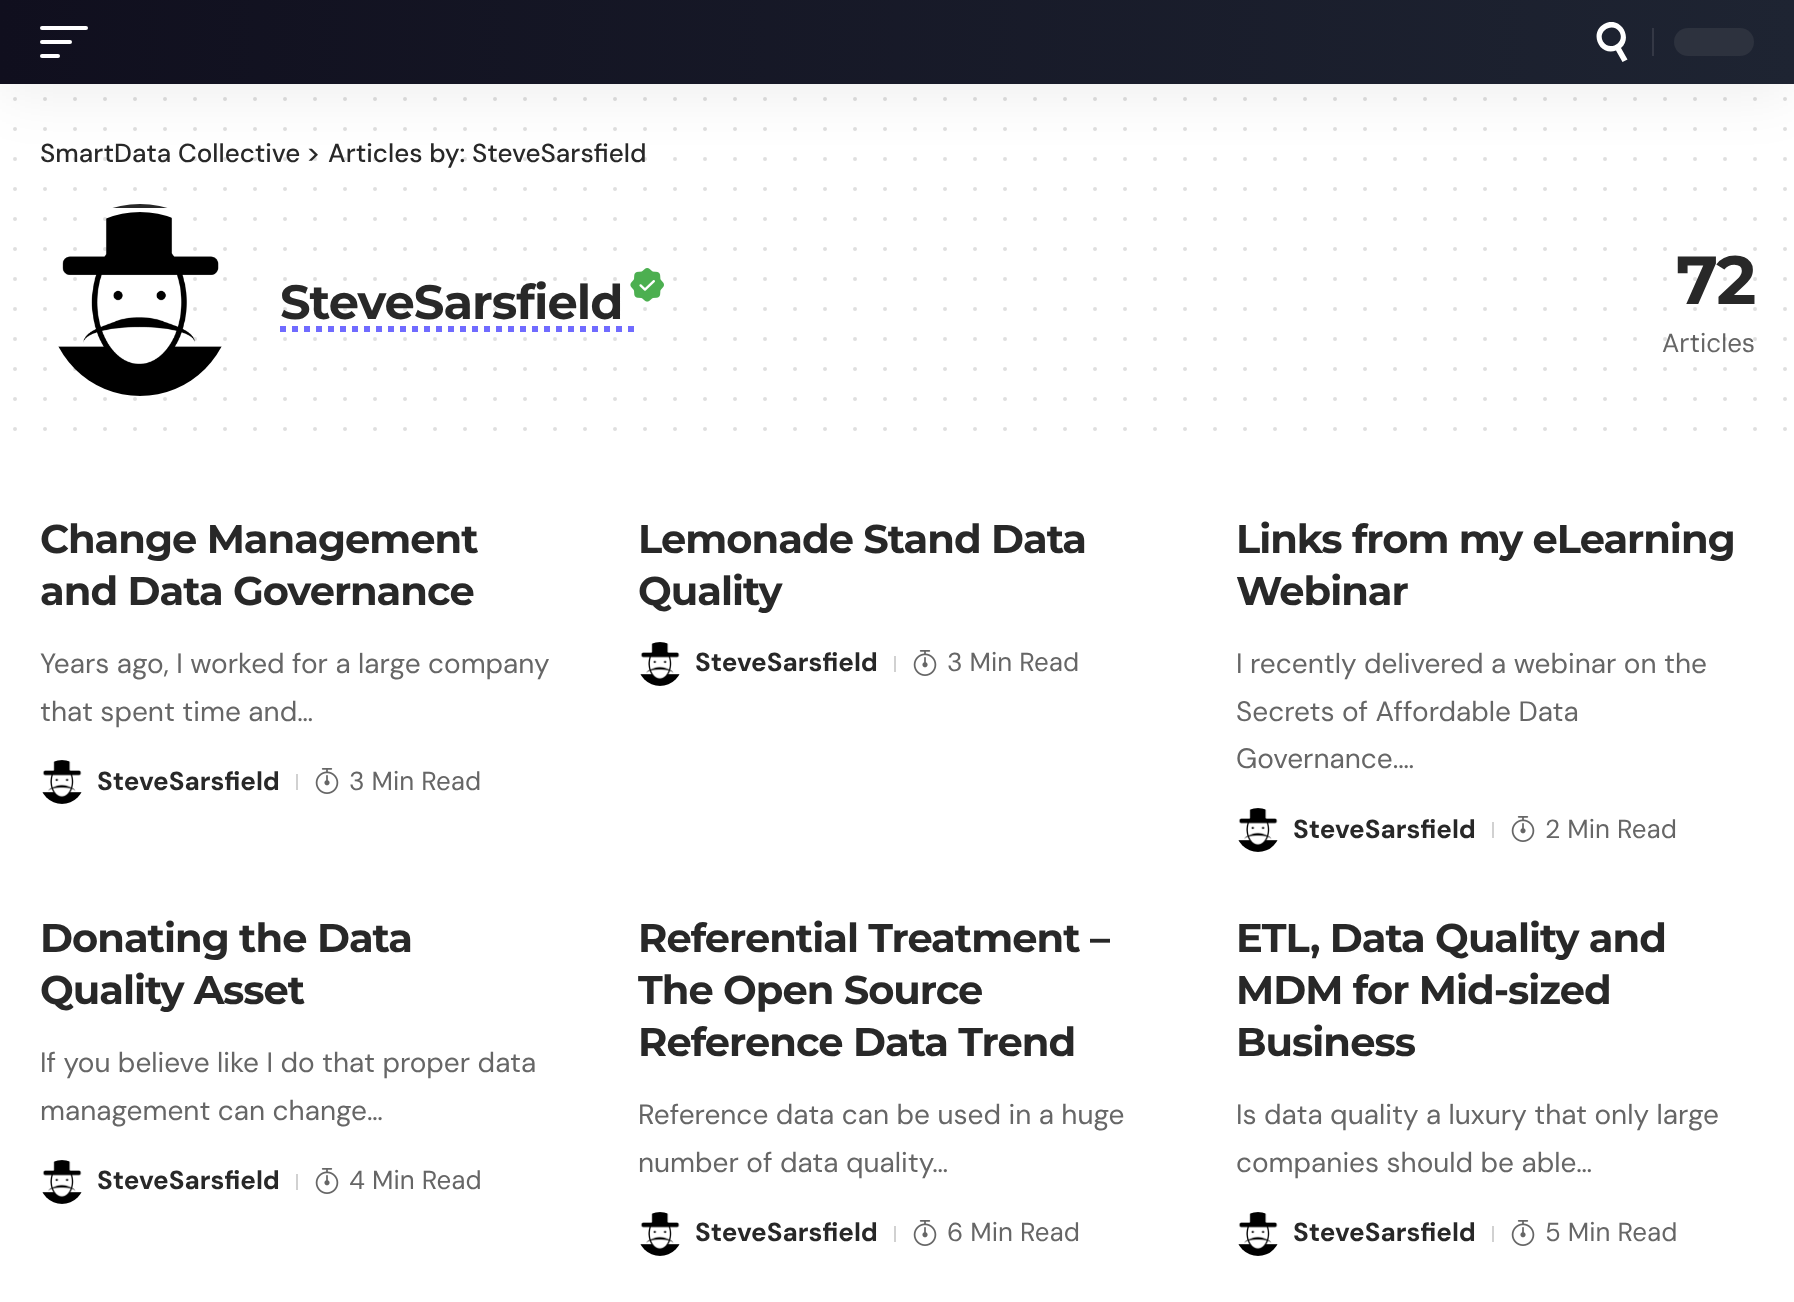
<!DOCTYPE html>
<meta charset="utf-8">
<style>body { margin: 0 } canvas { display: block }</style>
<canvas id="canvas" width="1794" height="1302"></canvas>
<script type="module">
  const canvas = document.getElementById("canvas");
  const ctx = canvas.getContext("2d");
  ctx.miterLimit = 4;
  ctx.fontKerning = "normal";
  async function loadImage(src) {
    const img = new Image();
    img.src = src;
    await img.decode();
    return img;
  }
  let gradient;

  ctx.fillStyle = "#ffffff";
  ctx.fillRect(0, 0, 1794, 1302);
  ctx.beginPath();
  ctx.moveTo(15, 99);
  ctx.lineTo(1785.4, 99);
  ctx.strokeStyle = "#dfdfdf";
  ctx.lineWidth = 4;
  ctx.lineCap = "round";
  ctx.setLineDash([0, 30]);
  ctx.stroke();
  ctx.beginPath();
  ctx.moveTo(15, 129);
  ctx.lineTo(1785.4, 129);
  ctx.stroke();
  ctx.font = "500 26px DM Sans";
  ctx.fillStyle = "#282828";
  ctx.fillText("SmartData Collective", 40, 162);
  ctx.fillText(">", 306, 162);
  ctx.fillText("Articles by: SteveSarsfield", 328, 162);
  ctx.beginPath();
  ctx.moveTo(15, 159);
  ctx.lineTo(1785.4, 159);
  ctx.strokeStyle = "rgba(40, 40, 40, 0.15)";
  ctx.stroke();
  ctx.fillStyle = "rgba(0, 0, 0, 0.07)";
  ctx.filter = "blur(30px)";
  ctx.beginPath();
  ctx.rect(0, 8, 1794, 84);
  ctx.fill();
  ctx.filter = "none";
  gradient = ctx.createLinearGradient(0, 42, 1794, 42);
  gradient.addColorStop(0, "#100f1e");
  gradient.addColorStop(1, "#1e2432");
  ctx.fillStyle = gradient;
  ctx.fillRect(0, 0, 1794, 84);
  ctx.fillStyle = "#ffffff";
  ctx.beginPath();
  ctx.roundRect(40, 26, 48, 4, 2);
  ctx.fill();
  ctx.beginPath();
  ctx.roundRect(40, 40, 32, 4, 2);
  ctx.fill();
  ctx.beginPath();
  ctx.roundRect(40, 54, 20, 4, 2);
  ctx.fill();
  ctx.save();
  ctx.beginPath();
  ctx.rect(1592, 22, 40, 40);
  ctx.clip();
  ctx.beginPath();
  ctx.moveTo(1604, 24);
  ctx.bezierCurveTo(1588.5, 33, 1599.5, 56.5, 1616, 50.5);
  ctx.lineTo(1622.5, 62);
  ctx.lineTo(1627.5, 59.5);
  ctx.lineTo(1621, 48);
  ctx.bezierCurveTo(1634, 36.5, 1619, 15, 1604, 24);
  ctx.closePath();
  ctx.moveTo(1619.5, 32);
  ctx.bezierCurveTo(1625.5, 42.5, 1609.5, 52, 1603, 41.5);
  ctx.bezierCurveTo(1597, 31, 1613, 21.5, 1619.5, 32);
  ctx.closePath();
  ctx.fill();
  ctx.restore();
  ctx.fillStyle = "#343845";
  ctx.fillRect(1652, 28, 2, 28);
  ctx.fillStyle = "#2d323e";
  ctx.beginPath();
  ctx.roundRect(1674, 28, 80, 28, 14);
  ctx.fill();
  ctx.beginPath();
  ctx.moveTo(15, 189);
  ctx.lineTo(1785.4, 189);
  ctx.strokeStyle = "#dfdfdf";
  ctx.stroke();
  ctx.beginPath();
  ctx.moveTo(15, 219);
  ctx.lineTo(1785.4, 219);
  ctx.stroke();
  ctx.beginPath();
  ctx.moveTo(15, 249);
  ctx.lineTo(1785.4, 249);
  ctx.stroke();
  ctx.letterSpacing = "-2px";
  ctx.font = "bold 68px Montserrat";
  ctx.fillStyle = "#282828";
  ctx.fillText("72", 1676, 304);
  ctx.beginPath();
  ctx.moveTo(15, 279);
  ctx.lineTo(1785.4, 279);
  ctx.strokeStyle = "rgba(40, 40, 40, 0.15)";
  ctx.stroke();
  ctx.letterSpacing = "-1px";
  ctx.font = "bold 48px Montserrat";
  ctx.fillText("SteveSarsfield", 280, 319);
  ctx.beginPath();
  ctx.moveTo(15, 309);
  ctx.lineTo(1785.4, 309);
  ctx.stroke();
  ctx.letterSpacing = "0px";
  ctx.font = "26px 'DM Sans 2'";
  ctx.fillStyle = "#666666";
  ctx.fillText("Articles", 1662, 352);
  ctx.beginPath();
  ctx.moveTo(15, 339);
  ctx.lineTo(1785.4, 339);
  ctx.stroke();
  ctx.beginPath();
  ctx.moveTo(15, 369);
  ctx.lineTo(1785.4, 369);
  ctx.strokeStyle = "#dfdfdf";
  ctx.stroke();
  ctx.beginPath();
  ctx.moveTo(15, 399);
  ctx.lineTo(1785.4, 399);
  ctx.stroke();
  ctx.beginPath();
  ctx.moveTo(15, 429);
  ctx.lineTo(1785.4, 429);
  ctx.stroke();
  ctx.save();
  ctx.beginPath();
  ctx.roundRect(40, 204, 200, 200, 100);
  ctx.clip();
  ctx.fillStyle = "#282828";
  ctx.fillRect(112, 204, 56, 4);
  ctx.restore();
  ctx.drawImage(await loadImage("img1.png"), 58, 212, 164, 184);
  ctx.beginPath();
  ctx.moveTo(280, 329);
  ctx.lineTo(635, 329);
  ctx.strokeStyle = "#706bff";
  ctx.lineWidth = 6;
  ctx.lineCap = "butt";
  ctx.setLineDash([6, 6]);
  ctx.stroke();
  ctx.drawImage(await loadImage("img2.png"), 630, 268, 34, 34);
  ctx.letterSpacing = "-1px";
  ctx.font = "bold 40px Montserrat";
  ctx.fillStyle = "#282828";
  ctx.fillText("Change Management", 40, 553);
  ctx.fillText("and Data Governance", 40, 605);
  ctx.letterSpacing = "0px";
  ctx.font = "28px DM Sans";
  ctx.fillStyle = "#666666";
  ctx.fillText("Years ago, I worked for a large company", 40, 673);
  ctx.fillText("that spent time and…", 40, 721);
  ctx.drawImage(await loadImage("img3.png"), 42, 760, 40, 44);
  ctx.font = "bold 26px DM Sans";
  ctx.fillStyle = "#282828";
  ctx.fillText("SteveSarsfield", 97, 790);
  ctx.fillStyle = "#d1d1d1";
  ctx.fillRect(296, 774, 2, 16);
  ctx.drawImage(await loadImage("img4.png"), 315, 768, 24, 26);
  ctx.font = "26px 'DM Sans 2'";
  ctx.fillStyle = "#666666";
  ctx.fillText("3 Min Read", 349, 790);
  ctx.letterSpacing = "-1px";
  ctx.font = "bold 40px Montserrat";
  ctx.fillStyle = "#282828";
  ctx.fillText("Lemonade Stand Data", 638, 553);
  ctx.fillText("Quality", 638, 605);
  ctx.drawImage(await loadImage("img5.png"), 640, 642, 40, 44);
  ctx.letterSpacing = "0px";
  ctx.font = "bold 26px DM Sans";
  ctx.fillText("SteveSarsfield", 695, 671);
  ctx.fillStyle = "#d1d1d1";
  ctx.fillRect(894, 656, 2, 16);
  ctx.drawImage(await loadImage("img4.png"), 913, 650, 24, 26);
  ctx.font = "26px 'DM Sans 2'";
  ctx.fillStyle = "#666666";
  ctx.fillText("3 Min Read", 947, 671);
  ctx.letterSpacing = "-1px";
  ctx.font = "bold 40px Montserrat";
  ctx.fillStyle = "#282828";
  ctx.fillText("Links from my eLearning", 1236, 553);
  ctx.fillText("Webinar", 1236, 605);
  ctx.letterSpacing = "0px";
  ctx.font = "28px DM Sans";
  ctx.fillStyle = "#666666";
  ctx.fillText("I recently delivered a webinar on the", 1236, 673);
  ctx.fillText("Secrets of Affordable Data", 1236, 721);
  ctx.fillText("Governance.…", 1236, 768);
  ctx.drawImage(await loadImage("img6.png"), 1238, 808, 40, 44);
  ctx.font = "bold 26px DM Sans";
  ctx.fillStyle = "#282828";
  ctx.fillText("SteveSarsfield", 1293, 838);
  ctx.fillStyle = "#d1d1d1";
  ctx.fillRect(1492, 822, 2, 16);
  ctx.drawImage(await loadImage("img4.png"), 1511, 816, 24, 26);
  ctx.font = "26px 'DM Sans 2'";
  ctx.fillStyle = "#666666";
  ctx.fillText("2 Min Read", 1545, 838);
  ctx.letterSpacing = "-1px";
  ctx.font = "bold 40px Montserrat";
  ctx.fillStyle = "#282828";
  ctx.fillText("Donating the Data", 40, 952);
  ctx.fillText("Quality Asset", 40, 1004);
  ctx.letterSpacing = "0px";
  ctx.font = "28px DM Sans";
  ctx.fillStyle = "#666666";
  ctx.fillText("If you believe like I do that proper data", 40, 1072);
  ctx.fillText("management can change…", 40, 1120);
  ctx.drawImage(await loadImage("img7.png"), 42, 1160, 40, 44);
  ctx.font = "bold 26px DM Sans";
  ctx.fillStyle = "#282828";
  ctx.fillText("SteveSarsfield", 97, 1189);
  ctx.fillStyle = "#d1d1d1";
  ctx.fillRect(296, 1174, 2, 16);
  ctx.drawImage(await loadImage("img4.png"), 315, 1168, 24, 26);
  ctx.font = "26px 'DM Sans 2'";
  ctx.fillStyle = "#666666";
  ctx.fillText("4 Min Read", 349, 1189);
  ctx.letterSpacing = "-1px";
  ctx.font = "bold 40px Montserrat";
  ctx.fillStyle = "#282828";
  ctx.fillText("Referential Treatment –", 638, 952);
  ctx.fillText("The Open Source", 638, 1004);
  ctx.fillText("Reference Data Trend", 638, 1056);
  ctx.letterSpacing = "0px";
  ctx.font = "28px DM Sans";
  ctx.fillStyle = "#666666";
  ctx.fillText("Reference data can be used in a huge", 638, 1124);
  ctx.fillText("number of data quality…", 638, 1172);
  ctx.drawImage(await loadImage("img5.png"), 640, 1212, 40, 44);
  ctx.font = "bold 26px DM Sans";
  ctx.fillStyle = "#282828";
  ctx.fillText("SteveSarsfield", 695, 1241);
  ctx.fillStyle = "#d1d1d1";
  ctx.fillRect(894, 1226, 2, 16);
  ctx.drawImage(await loadImage("img4.png"), 913, 1220, 24, 26);
  ctx.font = "26px 'DM Sans 2'";
  ctx.fillStyle = "#666666";
  ctx.fillText("6 Min Read", 947, 1241);
  ctx.letterSpacing = "-1px";
  ctx.font = "bold 40px Montserrat";
  ctx.fillStyle = "#282828";
  ctx.fillText("ETL, Data Quality and", 1236, 952);
  ctx.fillText("MDM for Mid-sized", 1236, 1004);
  ctx.fillText("Business", 1236, 1056);
  ctx.letterSpacing = "0px";
  ctx.font = "28px DM Sans";
  ctx.fillStyle = "#666666";
  ctx.fillText("Is data quality a luxury that only large", 1236, 1124);
  ctx.fillText("companies should be able…", 1236, 1172);
  ctx.drawImage(await loadImage("img6.png"), 1238, 1212, 40, 44);
  ctx.font = "bold 26px DM Sans";
  ctx.fillStyle = "#282828";
  ctx.fillText("SteveSarsfield", 1293, 1241);
  ctx.fillStyle = "#d1d1d1";
  ctx.fillRect(1492, 1226, 2, 16);
  ctx.drawImage(await loadImage("img4.png"), 1511, 1220, 24, 26);
  ctx.font = "26px 'DM Sans 2'";
  ctx.fillStyle = "#666666";
  ctx.fillText("5 Min Read", 1545, 1241);
</script>
